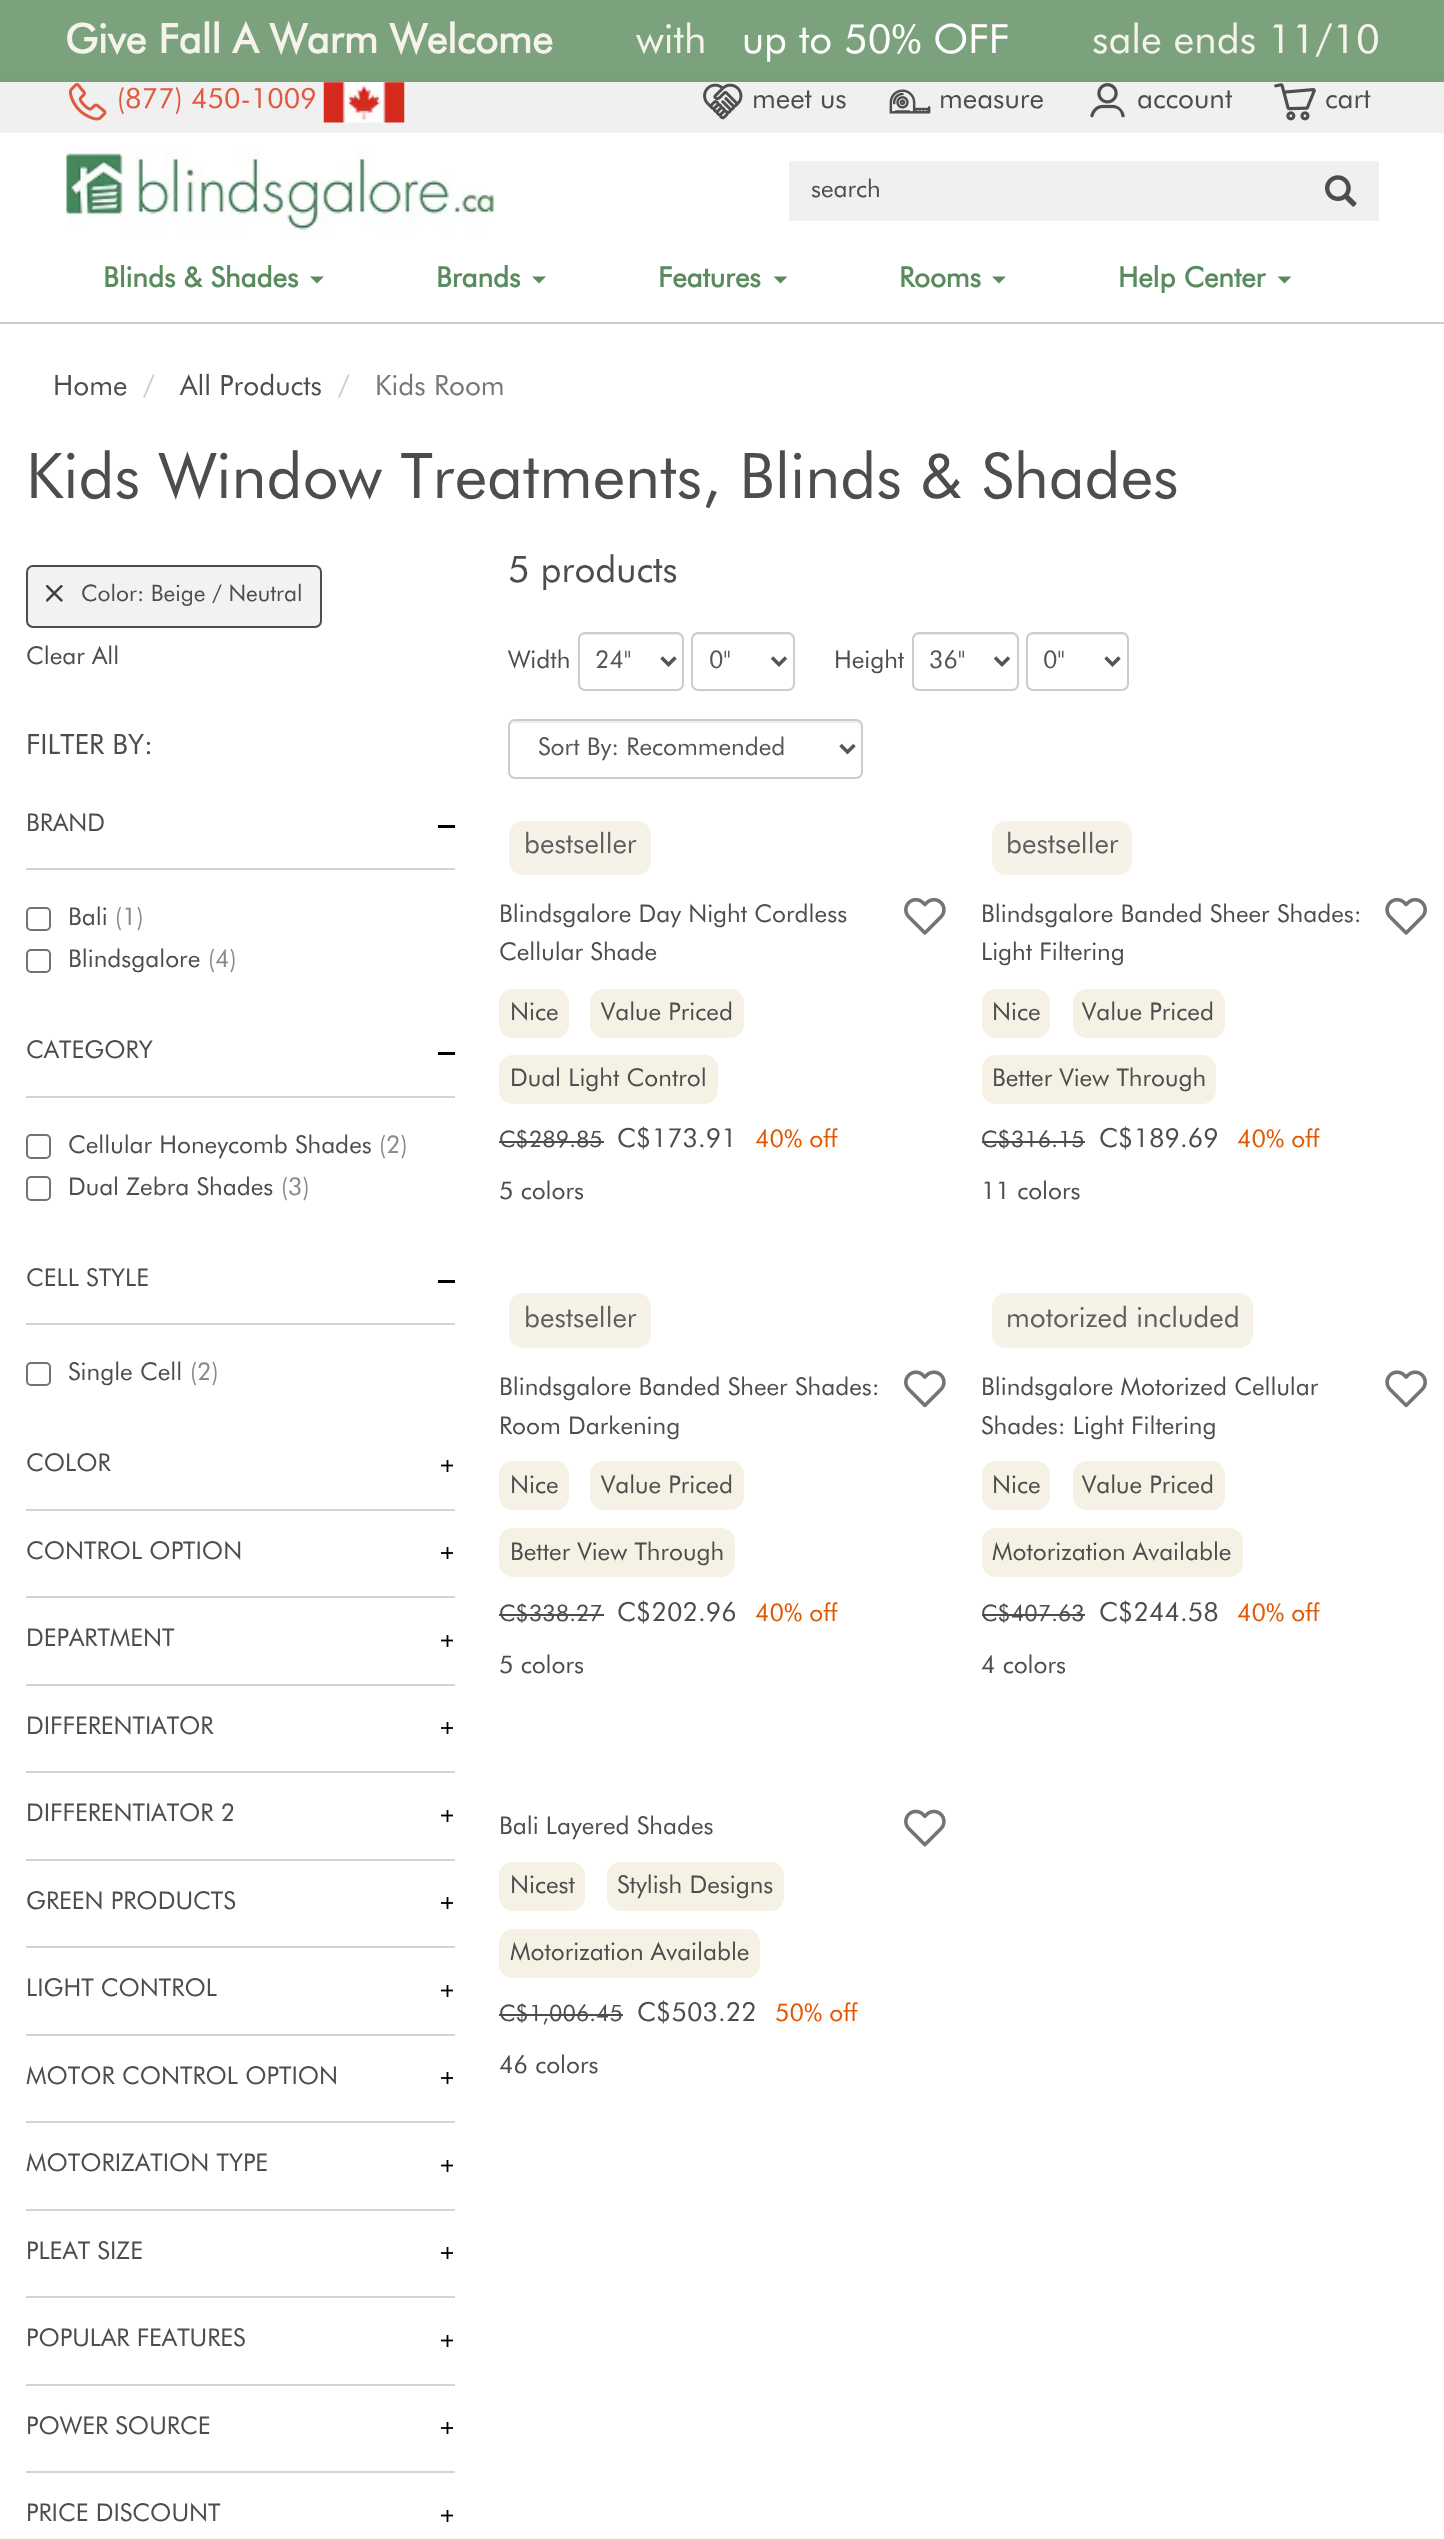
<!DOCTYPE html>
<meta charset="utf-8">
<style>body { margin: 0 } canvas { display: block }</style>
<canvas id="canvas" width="1444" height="2539"></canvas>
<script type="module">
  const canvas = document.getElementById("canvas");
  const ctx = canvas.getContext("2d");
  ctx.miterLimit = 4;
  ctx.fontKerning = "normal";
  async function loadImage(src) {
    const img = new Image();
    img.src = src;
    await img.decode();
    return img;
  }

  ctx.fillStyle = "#ffffff";
  ctx.fillRect(0, 0, 1444, 2539);
  ctx.fillStyle = "#7ba27c";
  ctx.fillRect(0, 0, 1444, 72);
  ctx.font = "bold 40.25px Futura";
  ctx.fillStyle = "#f5f3ec";
  ctx.fillText("Give Fall A Warm Welcome", 65, 53);
  ctx.font = "40.25px Futura";
  ctx.fillText("with", 636, 53);
  ctx.fillStyle = "#ffffff";
  ctx.fillText("up to 50% OFF", 742, 53);
  ctx.fillStyle = "#f5f3ec";
  ctx.fillText("sale ends 11/10", 1092, 53);
  ctx.fillStyle = "#f0f0f0";
  ctx.fillRect(0, 82, 1444, 51);
  ctx.fillStyle = "#789f79";
  ctx.fillRect(0, 72, 1444, 10);
  ctx.drawImage(await loadImage("img1.png"), 69, 83, 38, 38);
  ctx.font = "28px Futura";
  ctx.fillStyle = "#e1593f";
  ctx.fillText("(877) 450-1009", 117, 108);
  ctx.drawImage(await loadImage("img2.png"), 323, 82, 82, 41);
  ctx.drawImage(await loadImage("img3.png"), 703, 83, 40, 37);
  ctx.fillStyle = "#4d4d4d";
  ctx.fillText("meet us", 752, 108);
  ctx.drawImage(await loadImage("img4.png"), 889, 89, 42, 25);
  ctx.fillText("measure", 939, 108);
  ctx.drawImage(await loadImage("img5.png"), 1090, 83, 35, 35);
  ctx.fillText("account", 1137, 108);
  ctx.drawImage(await loadImage("img6.png"), 1274, 83, 42, 38);
  ctx.fillText("cart", 1325, 108);
  ctx.drawImage(await loadImage("img7.png"), 66, 150, 428, 83);
  ctx.fillStyle = "#f0f0f0";
  ctx.fillRect(789, 161, 590, 60);
  ctx.drawImage(await loadImage("img8.png"), 1325, 175, 32, 32);
  ctx.font = "24.5px Futura";
  ctx.fillStyle = "#4d4d4d";
  ctx.fillText("search", 811, 197);
  ctx.fillStyle = "#cccccc";
  ctx.fillRect(0, 322, 1444, 2);
  ctx.font = "bold 28px Futura";
  ctx.fillStyle = "#598b5e";
  ctx.fillText("Blinds & Shades", 103, 287);
  ctx.beginPath();
  ctx.moveTo(310, 276.5);
  ctx.lineTo(324, 276.5);
  ctx.lineTo(317, 283.5);
  ctx.closePath();
  ctx.fill();
  ctx.fillText("Brands", 436, 287);
  ctx.beginPath();
  ctx.moveTo(532, 276.5);
  ctx.lineTo(546, 276.5);
  ctx.lineTo(539, 283.5);
  ctx.closePath();
  ctx.fill();
  ctx.fillText("Features", 658, 287);
  ctx.beginPath();
  ctx.moveTo(773.5, 276.5);
  ctx.lineTo(787.5, 276.5);
  ctx.lineTo(780.5, 283.5);
  ctx.closePath();
  ctx.fill();
  ctx.fillText("Rooms", 899, 287);
  ctx.beginPath();
  ctx.moveTo(992, 276.5);
  ctx.lineTo(1006, 276.5);
  ctx.lineTo(999, 283.5);
  ctx.closePath();
  ctx.fill();
  ctx.fillText("Help Center", 1118, 287);
  ctx.beginPath();
  ctx.moveTo(1277.5, 276.5);
  ctx.lineTo(1291.5, 276.5);
  ctx.lineTo(1284.5, 283.5);
  ctx.closePath();
  ctx.fill();
  ctx.font = "28px Futura";
  ctx.fillStyle = "#4d4d4d";
  ctx.fillText("Home", 53, 395);
  ctx.fillStyle = "#cccccc";
  ctx.fillText("/", 143, 395);
  ctx.fillStyle = "#4d4d4d";
  ctx.fillText("All Products", 180, 395);
  ctx.fillStyle = "#cccccc";
  ctx.fillText("/", 338, 395);
  ctx.fillStyle = "#777777";
  ctx.fillText("Kids Room", 375, 395);
  ctx.font = "63px Futura";
  ctx.fillStyle = "#4d4d4d";
  ctx.fillText("Kids Window Treatments, Blinds & Shades", 26, 498);
  ctx.fillStyle = "#f2f2f2";
  ctx.beginPath();
  ctx.roundRect(27, 566, 294, 61, 6);
  ctx.fill();
  ctx.strokeStyle = "#4d4d4d";
  ctx.lineWidth = 2;
  ctx.stroke();
  ctx.drawImage(await loadImage("img9.png"), 46, 585, 17, 17);
  ctx.font = "22.75px Futura";
  ctx.fillStyle = "#4d4d4d";
  ctx.fillText("Color: Beige / Neutral", 81, 601);
  ctx.font = "24.5px Futura";
  ctx.fillText("Clear All", 26, 664);
  ctx.font = "28px Futura";
  ctx.fillText("FILTER BY:", 26, 754);
  ctx.fillStyle = "#d4d4d4";
  ctx.fillRect(26, 868, 429, 2);
  ctx.font = "24.5px Futura";
  ctx.fillStyle = "#4d4d4d";
  ctx.fillText("BRAND", 26, 831);
  ctx.fillStyle = "#000000";
  ctx.fillRect(438, 825, 17, 3);
  ctx.beginPath();
  ctx.roundRect(27, 908, 23, 22, 4);
  ctx.strokeStyle = "#737373";
  ctx.stroke();
  ctx.fillStyle = "#4d4d4d";
  ctx.fillText("Bali", 68, 925);
  ctx.fillStyle = "#8a8a8a";
  ctx.fillText("(1)", 115, 925);
  ctx.beginPath();
  ctx.roundRect(27, 950, 23, 22, 4);
  ctx.stroke();
  ctx.fillStyle = "#4d4d4d";
  ctx.fillText("Blindsgalore", 68, 967);
  ctx.fillStyle = "#8a8a8a";
  ctx.fillText("(4)", 208, 967);
  ctx.fillStyle = "#d4d4d4";
  ctx.fillRect(26, 1096, 429, 2);
  ctx.fillStyle = "#4d4d4d";
  ctx.fillText("CATEGORY", 26, 1058);
  ctx.fillStyle = "#000000";
  ctx.fillRect(438, 1052, 17, 3);
  ctx.beginPath();
  ctx.roundRect(27, 1135, 23, 23, 4);
  ctx.stroke();
  ctx.fillStyle = "#4d4d4d";
  ctx.fillText("Cellular Honeycomb Shades", 68, 1153);
  ctx.fillStyle = "#8a8a8a";
  ctx.fillText("(2)", 379, 1153);
  ctx.beginPath();
  ctx.roundRect(27, 1177, 23, 23, 4);
  ctx.stroke();
  ctx.fillStyle = "#4d4d4d";
  ctx.fillText("Dual Zebra Shades", 68, 1195);
  ctx.fillStyle = "#8a8a8a";
  ctx.fillText("(3)", 281, 1195);
  ctx.fillStyle = "#d4d4d4";
  ctx.fillRect(26, 1323, 429, 2);
  ctx.fillStyle = "#4d4d4d";
  ctx.fillText("CELL STYLE", 26, 1286);
  ctx.fillStyle = "#000000";
  ctx.fillRect(438, 1280, 17, 3);
  ctx.beginPath();
  ctx.roundRect(27, 1363, 23, 22, 4);
  ctx.stroke();
  ctx.fillStyle = "#4d4d4d";
  ctx.fillText("Single Cell", 68, 1380);
  ctx.fillStyle = "#8a8a8a";
  ctx.fillText("(2)", 190, 1380);
  ctx.fillStyle = "#d4d4d4";
  ctx.fillRect(26, 1509, 429, 2);
  ctx.fillStyle = "#4d4d4d";
  ctx.fillText("COLOR", 26, 1471);
  ctx.save();
  ctx.beginPath();
  ctx.rect(441, 1460, 12, 12);
  ctx.clip();
  ctx.beginPath();
  ctx.moveTo(447.5, 1459.5);
  ctx.lineTo(447.5, 1472);
  ctx.strokeStyle = "#000000";
  ctx.lineWidth = 1.8;
  ctx.stroke();
  ctx.restore();
  ctx.beginPath();
  ctx.moveTo(441, 1465.5);
  ctx.lineTo(453, 1465.5);
  ctx.strokeStyle = "#000000";
  ctx.lineWidth = 1.8;
  ctx.stroke();
  ctx.fillStyle = "#d4d4d4";
  ctx.fillRect(26, 1596, 429, 2);
  ctx.fillStyle = "#4d4d4d";
  ctx.fillText("CONTROL OPTION", 26, 1559);
  ctx.beginPath();
  ctx.moveTo(447.5, 1547);
  ctx.lineTo(447.5, 1559);
  ctx.stroke();
  ctx.fillStyle = "rgba(0, 0, 0, 0.9)";
  ctx.fillRect(441, 1552, 12, 2);
  ctx.fillStyle = "#d4d4d4";
  ctx.fillRect(26, 1684, 429, 2);
  ctx.fillStyle = "#4d4d4d";
  ctx.fillText("DEPARTMENT", 26, 1646);
  ctx.save();
  ctx.beginPath();
  ctx.rect(441, 1635, 12, 12);
  ctx.clip();
  ctx.beginPath();
  ctx.moveTo(447.5, 1634.5);
  ctx.lineTo(447.5, 1647);
  ctx.stroke();
  ctx.restore();
  ctx.beginPath();
  ctx.moveTo(441, 1640.5);
  ctx.lineTo(453, 1640.5);
  ctx.stroke();
  ctx.fillStyle = "#d4d4d4";
  ctx.fillRect(26, 1771, 429, 2);
  ctx.fillStyle = "#4d4d4d";
  ctx.fillText("DIFFERENTIATOR", 26, 1734);
  ctx.beginPath();
  ctx.moveTo(447.5, 1722);
  ctx.lineTo(447.5, 1734);
  ctx.stroke();
  ctx.fillStyle = "rgba(0, 0, 0, 0.9)";
  ctx.fillRect(441, 1727, 12, 2);
  ctx.fillStyle = "#d4d4d4";
  ctx.fillRect(26, 1859, 429, 2);
  ctx.fillStyle = "#4d4d4d";
  ctx.fillText("DIFFERENTIATOR 2", 26, 1821);
  ctx.save();
  ctx.beginPath();
  ctx.rect(441, 1810, 12, 12);
  ctx.clip();
  ctx.beginPath();
  ctx.moveTo(447.5, 1809.5);
  ctx.lineTo(447.5, 1822);
  ctx.stroke();
  ctx.restore();
  ctx.beginPath();
  ctx.moveTo(441, 1815.5);
  ctx.lineTo(453, 1815.5);
  ctx.stroke();
  ctx.fillStyle = "#d4d4d4";
  ctx.fillRect(26, 1946, 429, 2);
  ctx.fillStyle = "#4d4d4d";
  ctx.fillText("GREEN PRODUCTS", 26, 1909);
  ctx.beginPath();
  ctx.moveTo(447.5, 1897);
  ctx.lineTo(447.5, 1909);
  ctx.stroke();
  ctx.fillStyle = "rgba(0, 0, 0, 0.9)";
  ctx.fillRect(441, 1902, 12, 2);
  ctx.fillStyle = "#d4d4d4";
  ctx.fillRect(26, 2034, 429, 2);
  ctx.fillStyle = "#4d4d4d";
  ctx.fillText("LIGHT CONTROL", 26, 1996);
  ctx.save();
  ctx.beginPath();
  ctx.rect(441, 1985, 12, 12);
  ctx.clip();
  ctx.beginPath();
  ctx.moveTo(447.5, 1984.5);
  ctx.lineTo(447.5, 1997);
  ctx.stroke();
  ctx.restore();
  ctx.beginPath();
  ctx.moveTo(441, 1990.5);
  ctx.lineTo(453, 1990.5);
  ctx.stroke();
  ctx.fillStyle = "#d4d4d4";
  ctx.fillRect(26, 2121, 429, 2);
  ctx.fillStyle = "#4d4d4d";
  ctx.fillText("MOTOR CONTROL OPTION", 26, 2084);
  ctx.beginPath();
  ctx.moveTo(447.5, 2072);
  ctx.lineTo(447.5, 2084);
  ctx.stroke();
  ctx.fillStyle = "rgba(0, 0, 0, 0.9)";
  ctx.fillRect(441, 2077, 12, 2);
  ctx.fillStyle = "#d4d4d4";
  ctx.fillRect(26, 2209, 429, 2);
  ctx.fillStyle = "#4d4d4d";
  ctx.fillText("MOTORIZATION TYPE", 26, 2171);
  ctx.save();
  ctx.beginPath();
  ctx.rect(441, 2160, 12, 12);
  ctx.clip();
  ctx.beginPath();
  ctx.moveTo(447.5, 2159.5);
  ctx.lineTo(447.5, 2172);
  ctx.stroke();
  ctx.restore();
  ctx.beginPath();
  ctx.moveTo(441, 2165.5);
  ctx.lineTo(453, 2165.5);
  ctx.stroke();
  ctx.fillStyle = "#d4d4d4";
  ctx.fillRect(26, 2296, 429, 2);
  ctx.fillStyle = "#4d4d4d";
  ctx.fillText("PLEAT SIZE", 26, 2259);
  ctx.beginPath();
  ctx.moveTo(447.5, 2247);
  ctx.lineTo(447.5, 2259);
  ctx.stroke();
  ctx.fillStyle = "rgba(0, 0, 0, 0.9)";
  ctx.fillRect(441, 2252, 12, 2);
  ctx.fillStyle = "#d4d4d4";
  ctx.fillRect(26, 2384, 429, 2);
  ctx.fillStyle = "#4d4d4d";
  ctx.fillText("POPULAR FEATURES", 26, 2346);
  ctx.save();
  ctx.beginPath();
  ctx.rect(441, 2335, 12, 12);
  ctx.clip();
  ctx.beginPath();
  ctx.moveTo(447.5, 2334.5);
  ctx.lineTo(447.5, 2347);
  ctx.stroke();
  ctx.restore();
  ctx.beginPath();
  ctx.moveTo(441, 2340.5);
  ctx.lineTo(453, 2340.5);
  ctx.stroke();
  ctx.fillStyle = "#d4d4d4";
  ctx.fillRect(26, 2471, 429, 2);
  ctx.fillStyle = "#4d4d4d";
  ctx.fillText("POWER SOURCE", 26, 2434);
  ctx.beginPath();
  ctx.moveTo(447.5, 2422);
  ctx.lineTo(447.5, 2434);
  ctx.stroke();
  ctx.fillStyle = "rgba(0, 0, 0, 0.9)";
  ctx.fillRect(441, 2427, 12, 2);
  ctx.fillStyle = "#4d4d4d";
  ctx.fillText("PRICE DISCOUNT", 26, 2521);
  ctx.save();
  ctx.beginPath();
  ctx.rect(441, 2510, 12, 12);
  ctx.clip();
  ctx.beginPath();
  ctx.moveTo(447.5, 2509.5);
  ctx.lineTo(447.5, 2522);
  ctx.stroke();
  ctx.restore();
  ctx.beginPath();
  ctx.moveTo(441, 2515.5);
  ctx.lineTo(453, 2515.5);
  ctx.stroke();
  ctx.font = "36.75px Futura";
  ctx.fillText("5 products", 508, 582);
  ctx.font = "24.5px Futura";
  ctx.fillText("Width", 508, 668);
  ctx.fillStyle = "#ececec";
  ctx.beginPath();
  ctx.moveTo(584, 635);
  ctx.lineTo(677, 635);
  ctx.bezierCurveTo(680, 635, 682, 638, 682, 640);
  ctx.lineTo(682, 686);
  ctx.lineTo(681, 689);
  ctx.bezierCurveTo(682, 688, 683, 686, 683, 685);
  ctx.lineTo(683, 639);
  ctx.bezierCurveTo(683, 636, 681, 634, 678, 634);
  ctx.lineTo(584, 634);
  ctx.bezierCurveTo(581, 634, 579, 636, 579, 639);
  ctx.lineTo(579, 640);
  ctx.bezierCurveTo(579, 638, 582, 635, 584, 635);
  ctx.closePath();
  ctx.fill();
  ctx.beginPath();
  ctx.roundRect(579, 633, 104, 57, 6);
  ctx.strokeStyle = "#cccccc";
  ctx.lineWidth = 2;
  ctx.stroke();
  ctx.beginPath();
  ctx.moveTo(661.5, 657.5);
  ctx.lineTo(668.5, 664.5);
  ctx.lineTo(675.5, 657.5);
  ctx.strokeStyle = "#555555";
  ctx.lineWidth = 3.5;
  ctx.stroke();
  ctx.fillStyle = "#555555";
  ctx.fillText("24\"", 595, 668);
  ctx.fillStyle = "#ececec";
  ctx.beginPath();
  ctx.moveTo(698, 635);
  ctx.lineTo(788, 635);
  ctx.bezierCurveTo(790, 635, 793, 638, 793, 640);
  ctx.bezierCurveTo(793, 630, 778, 634, 773, 634);
  ctx.lineTo(713, 634);
  ctx.bezierCurveTo(708, 634, 693, 630, 693, 640);
  ctx.bezierCurveTo(693, 638, 695, 635, 698, 635);
  ctx.closePath();
  ctx.fill();
  ctx.beginPath();
  ctx.roundRect(692, 633, 102, 57, 6);
  ctx.strokeStyle = "#cccccc";
  ctx.lineWidth = 2;
  ctx.stroke();
  ctx.beginPath();
  ctx.moveTo(772, 657.5);
  ctx.lineTo(779, 664.5);
  ctx.lineTo(786, 657.5);
  ctx.strokeStyle = "#555555";
  ctx.lineWidth = 3.5;
  ctx.stroke();
  ctx.fillStyle = "#555555";
  ctx.fillText("0\"", 709, 668);
  ctx.fillStyle = "#4d4d4d";
  ctx.fillText("Height", 834, 668);
  ctx.fillStyle = "#ececec";
  ctx.beginPath();
  ctx.moveTo(919, 635);
  ctx.lineTo(1012, 635);
  ctx.bezierCurveTo(1014, 635, 1017, 638, 1017, 640);
  ctx.bezierCurveTo(1017, 630, 1002, 634, 996, 634);
  ctx.lineTo(934, 634);
  ctx.bezierCurveTo(929, 634, 914, 630, 914, 640);
  ctx.bezierCurveTo(914, 638, 916, 635, 919, 635);
  ctx.closePath();
  ctx.fill();
  ctx.beginPath();
  ctx.roundRect(913, 633, 105, 57, 6);
  ctx.strokeStyle = "#cccccc";
  ctx.lineWidth = 2;
  ctx.stroke();
  ctx.beginPath();
  ctx.moveTo(995, 657.5);
  ctx.lineTo(1002, 664.5);
  ctx.lineTo(1009, 657.5);
  ctx.strokeStyle = "#555555";
  ctx.lineWidth = 3.5;
  ctx.stroke();
  ctx.fillStyle = "#555555";
  ctx.fillText("36\"", 929, 668);
  ctx.fillStyle = "#ececec";
  ctx.beginPath();
  ctx.moveTo(1032, 635);
  ctx.lineTo(1122, 635);
  ctx.bezierCurveTo(1125, 635, 1127, 638, 1127, 640);
  ctx.bezierCurveTo(1127, 630, 1112, 634, 1107, 634);
  ctx.lineTo(1047, 634);
  ctx.bezierCurveTo(1042, 634, 1027, 630, 1027, 640);
  ctx.bezierCurveTo(1027, 638, 1030, 635, 1032, 635);
  ctx.closePath();
  ctx.fill();
  ctx.beginPath();
  ctx.roundRect(1027, 633, 101, 57, 6);
  ctx.strokeStyle = "#cccccc";
  ctx.lineWidth = 2;
  ctx.stroke();
  ctx.beginPath();
  ctx.moveTo(1105.5, 657.5);
  ctx.lineTo(1112.5, 664.5);
  ctx.lineTo(1119.5, 657.5);
  ctx.strokeStyle = "#555555";
  ctx.lineWidth = 3.5;
  ctx.stroke();
  ctx.fillStyle = "#555555";
  ctx.fillText("0\"", 1043, 668);
  ctx.fillStyle = "#ececec";
  ctx.beginPath();
  ctx.moveTo(514, 723);
  ctx.lineTo(856, 723);
  ctx.bezierCurveTo(859, 723, 861, 725, 861, 728);
  ctx.bezierCurveTo(861, 725, 860, 721, 856, 721);
  ctx.lineTo(514, 721);
  ctx.bezierCurveTo(510, 721, 509, 725, 509, 728);
  ctx.bezierCurveTo(509, 725, 512, 723, 514, 723);
  ctx.closePath();
  ctx.fill();
  ctx.beginPath();
  ctx.roundRect(509, 720, 353, 58, 6);
  ctx.strokeStyle = "#cccccc";
  ctx.lineWidth = 2;
  ctx.stroke();
  ctx.beginPath();
  ctx.moveTo(840.5, 745);
  ctx.lineTo(847.5, 752);
  ctx.lineTo(854.5, 745);
  ctx.strokeStyle = "#555555";
  ctx.lineWidth = 3.5;
  ctx.stroke();
  ctx.fillStyle = "#555555";
  ctx.fillText("Sort By: Recommended", 538, 755);
  ctx.fillStyle = "#f6f2e8";
  ctx.beginPath();
  ctx.roundRect(509, 821, 142, 54, 14);
  ctx.fill();
  ctx.font = "28px Futura";
  ctx.fillStyle = "#5f5f5f";
  ctx.fillText("bestseller", 524, 853);
  ctx.font = "24.5px Futura";
  ctx.fillStyle = "#4d4d4d";
  ctx.fillText("Blindsgalore Day Night Cordless", 499, 922);
  ctx.fillText("Cellular Shade", 499, 960);
  ctx.drawImage(await loadImage("img10.png"), 904, 897, 42, 38);
  ctx.fillStyle = "#f5f1e5";
  ctx.beginPath();
  ctx.roundRect(499, 989, 70, 49, 14);
  ctx.fill();
  ctx.fillStyle = "#4d4d4d";
  ctx.fillText("Nice", 510, 1020);
  ctx.fillStyle = "#f5f1e5";
  ctx.beginPath();
  ctx.roundRect(590, 989, 154, 49, 14);
  ctx.fill();
  ctx.fillStyle = "#4d4d4d";
  ctx.fillText("Value Priced", 601, 1020);
  ctx.fillStyle = "#f5f1e5";
  ctx.beginPath();
  ctx.roundRect(499, 1055, 219, 49, 14);
  ctx.fill();
  ctx.fillStyle = "#4d4d4d";
  ctx.fillText("Dual Light Control", 510, 1086);
  ctx.font = "22.75px Futura";
  ctx.fillText("C$289.85", 499, 1147);
  ctx.fillRect(499, 1141, 105, 2);
  ctx.font = "26.25px Futura";
  ctx.fillText("C$173.91", 617, 1147);
  ctx.font = "24.5px Futura";
  ctx.fillStyle = "#e25800";
  ctx.fillText("40% off", 755, 1147);
  ctx.fillStyle = "#4d4d4d";
  ctx.fillText("5 colors", 499, 1199);
  ctx.fillStyle = "#f6f2e8";
  ctx.beginPath();
  ctx.roundRect(992, 821, 140, 54, 14);
  ctx.fill();
  ctx.font = "28px Futura";
  ctx.fillStyle = "#5f5f5f";
  ctx.fillText("bestseller", 1006, 853);
  ctx.font = "24.5px Futura";
  ctx.fillStyle = "#4d4d4d";
  ctx.fillText("Blindsgalore Banded Sheer Shades:", 981, 922);
  ctx.fillText("Light Filtering", 981, 960);
  ctx.drawImage(await loadImage("img11.png"), 1385, 897, 42, 38);
  ctx.fillStyle = "#f5f1e5";
  ctx.beginPath();
  ctx.roundRect(982, 989, 68, 49, 14);
  ctx.fill();
  ctx.fillStyle = "#4d4d4d";
  ctx.fillText("Nice", 992, 1020);
  ctx.fillStyle = "#f5f1e5";
  ctx.beginPath();
  ctx.roundRect(1073, 989, 152, 49, 14);
  ctx.fill();
  ctx.fillStyle = "#4d4d4d";
  ctx.fillText("Value Priced", 1082, 1020);
  ctx.fillStyle = "#f5f1e5";
  ctx.beginPath();
  ctx.roundRect(982, 1055, 234, 49, 14);
  ctx.fill();
  ctx.fillStyle = "#4d4d4d";
  ctx.fillText("Better View Through", 992, 1086);
  ctx.font = "22.75px Futura";
  ctx.fillText("C$316.15", 981, 1147);
  ctx.fillRect(982, 1141, 103, 2);
  ctx.font = "26.25px Futura";
  ctx.fillText("C$189.69", 1099, 1147);
  ctx.font = "24.5px Futura";
  ctx.fillStyle = "#e25800";
  ctx.fillText("40% off", 1237, 1147);
  ctx.fillStyle = "#4d4d4d";
  ctx.fillText("11 colors", 981, 1199);
  ctx.fillStyle = "#f6f2e8";
  ctx.beginPath();
  ctx.roundRect(509, 1293, 142, 55, 14);
  ctx.fill();
  ctx.font = "28px Futura";
  ctx.fillStyle = "#5f5f5f";
  ctx.fillText("bestseller", 524, 1327);
  ctx.font = "24.5px Futura";
  ctx.fillStyle = "#4d4d4d";
  ctx.fillText("Blindsgalore Banded Sheer Shades:", 499, 1395);
  ctx.fillText("Room Darkening", 499, 1434);
  ctx.drawImage(await loadImage("img12.png"), 904, 1370, 42, 38);
  ctx.fillStyle = "#f5f1e5";
  ctx.beginPath();
  ctx.roundRect(499, 1461, 70, 49, 14);
  ctx.fill();
  ctx.fillStyle = "#4d4d4d";
  ctx.fillText("Nice", 510, 1493);
  ctx.fillStyle = "#f5f1e5";
  ctx.beginPath();
  ctx.roundRect(590, 1461, 154, 49, 14);
  ctx.fill();
  ctx.fillStyle = "#4d4d4d";
  ctx.fillText("Value Priced", 601, 1493);
  ctx.fillStyle = "#f5f1e5";
  ctx.beginPath();
  ctx.roundRect(499, 1528, 236, 49, 14);
  ctx.fill();
  ctx.fillStyle = "#4d4d4d";
  ctx.fillText("Better View Through", 510, 1560);
  ctx.font = "22.75px Futura";
  ctx.fillText("C$338.27", 499, 1621);
  ctx.fillRect(499, 1614, 105, 2);
  ctx.font = "26.25px Futura";
  ctx.fillText("C$202.96", 617, 1621);
  ctx.font = "24.5px Futura";
  ctx.fillStyle = "#e25800";
  ctx.fillText("40% off", 755, 1621);
  ctx.fillStyle = "#4d4d4d";
  ctx.fillText("5 colors", 499, 1673);
  ctx.fillStyle = "#f6f2e8";
  ctx.beginPath();
  ctx.roundRect(992, 1293, 261, 55, 14);
  ctx.fill();
  ctx.font = "28px Futura";
  ctx.fillStyle = "#5f5f5f";
  ctx.fillText("motorized included", 1006, 1327);
  ctx.font = "24.5px Futura";
  ctx.fillStyle = "#4d4d4d";
  ctx.fillText("Blindsgalore Motorized Cellular", 981, 1395);
  ctx.fillText("Shades: Light Filtering", 981, 1434);
  ctx.drawImage(await loadImage("img13.png"), 1385, 1370, 42, 38);
  ctx.fillStyle = "#f5f1e5";
  ctx.beginPath();
  ctx.roundRect(982, 1461, 68, 49, 14);
  ctx.fill();
  ctx.fillStyle = "#4d4d4d";
  ctx.fillText("Nice", 992, 1493);
  ctx.fillStyle = "#f5f1e5";
  ctx.beginPath();
  ctx.roundRect(1073, 1461, 152, 49, 14);
  ctx.fill();
  ctx.fillStyle = "#4d4d4d";
  ctx.fillText("Value Priced", 1082, 1493);
  ctx.fillStyle = "#f5f1e5";
  ctx.beginPath();
  ctx.roundRect(982, 1528, 261, 49, 14);
  ctx.fill();
  ctx.fillStyle = "#4d4d4d";
  ctx.fillText("Motorization Available", 992, 1560);
  ctx.font = "22.75px Futura";
  ctx.fillText("C$407.63", 981, 1621);
  ctx.fillRect(982, 1614, 103, 2);
  ctx.font = "26.25px Futura";
  ctx.fillText("C$244.58", 1099, 1621);
  ctx.font = "24.5px Futura";
  ctx.fillStyle = "#e25800";
  ctx.fillText("40% off", 1237, 1621);
  ctx.fillStyle = "#4d4d4d";
  ctx.fillText("4 colors", 981, 1673);
  ctx.fillText("Bali Layered Shades", 499, 1834);
  ctx.drawImage(await loadImage("img14.png"), 904, 1809, 42, 38);
  ctx.fillStyle = "#f5f1e5";
  ctx.beginPath();
  ctx.roundRect(499, 1862, 86, 49, 14);
  ctx.fill();
  ctx.fillStyle = "#4d4d4d";
  ctx.fillText("Nicest", 510, 1893);
  ctx.fillStyle = "#f5f1e5";
  ctx.beginPath();
  ctx.roundRect(607, 1862, 177, 49, 14);
  ctx.fill();
  ctx.fillStyle = "#4d4d4d";
  ctx.fillText("Stylish Designs", 617, 1893);
  ctx.fillStyle = "#f5f1e5";
  ctx.beginPath();
  ctx.roundRect(499, 1929, 261, 49, 14);
  ctx.fill();
  ctx.fillStyle = "#4d4d4d";
  ctx.fillText("Motorization Available", 510, 1960);
  ctx.font = "22.75px Futura";
  ctx.fillText("C$1,006.45", 499, 2021);
  ctx.fillRect(499, 2014, 124, 2);
  ctx.font = "26.25px Futura";
  ctx.fillText("C$503.22", 637, 2021);
  ctx.font = "24.5px Futura";
  ctx.fillStyle = "#e25800";
  ctx.fillText("50% off", 775, 2021);
  ctx.fillStyle = "#4d4d4d";
  ctx.fillText("46 colors", 499, 2073);
</script>
